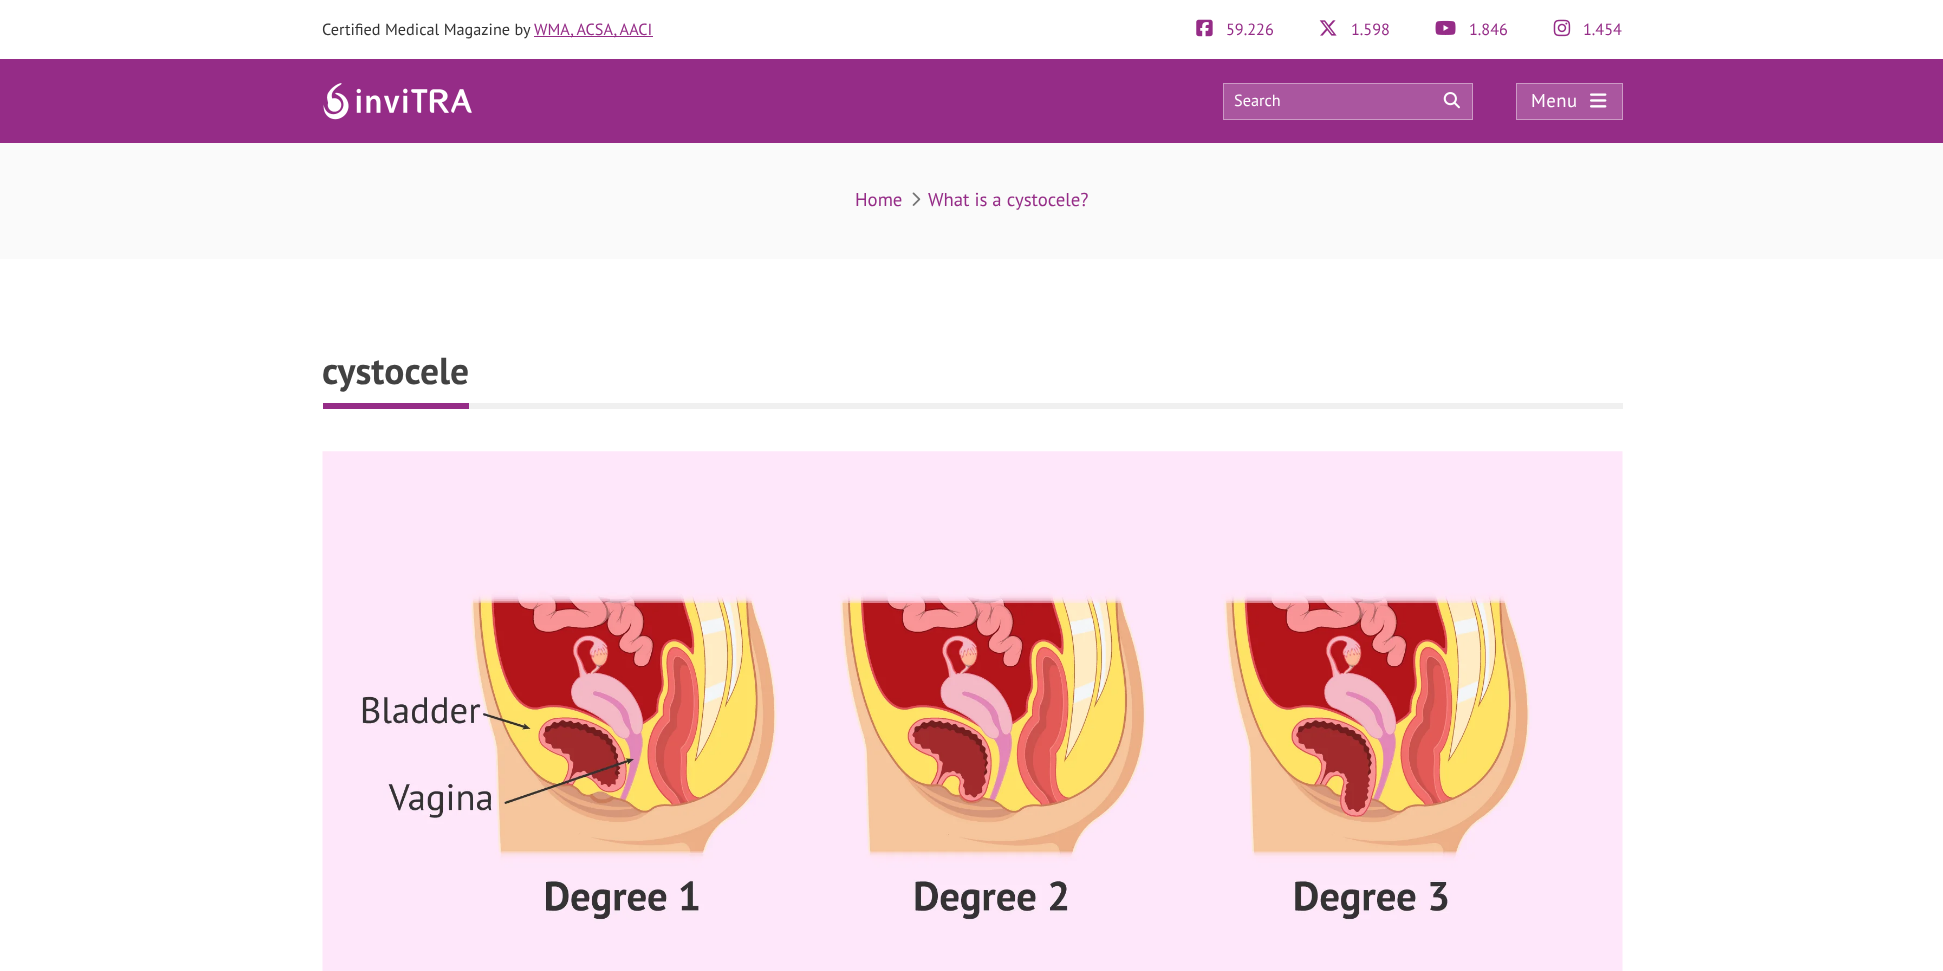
<!DOCTYPE html>
<meta charset="utf-8">
<style>body { margin: 0 } canvas { display: block }</style>
<canvas id="canvas" width="1943" height="971"></canvas>
<script type="module">
  const canvas = document.getElementById("canvas");
  const ctx = canvas.getContext("2d");
  ctx.miterLimit = 4;
  ctx.fontKerning = "normal";
  async function loadImage(src) {
    const img = new Image();
    img.src = src;
    await img.decode();
    return img;
  }

  ctx.fillStyle = "#ffffff";
  ctx.fillRect(0, 0, 1943, 971);
  ctx.font = "16.25px PT Sans";
  ctx.fillStyle = "#333333";
  ctx.fillText("Certified Medical Magazine by", 322, 35);
  ctx.fillStyle = "#952c87";
  ctx.fillRect(534, 36, 119, 1);
  ctx.fillText("WMA, ACSA, AACI", 534, 35);
  ctx.drawImage(await loadImage("img1.png"), 1196, 19, 17, 18);
  ctx.fillText("59.226", 1226, 35);
  ctx.drawImage(await loadImage("img2.png"), 1319, 20, 18, 16);
  ctx.fillText("1.598", 1351, 35);
  ctx.drawImage(await loadImage("img3.png"), 1435, 20, 21, 15);
  ctx.fillText("1.846", 1469, 35);
  ctx.drawImage(await loadImage("img4.png"), 1553, 19, 18, 18);
  ctx.fillText("1.454", 1583, 35);
  ctx.fillRect(0, 59, 1943, 84);
  ctx.drawImage(await loadImage("img5.png"), 323, 83, 149, 37);
  ctx.fillStyle = "#aa569f";
  ctx.fillRect(1224, 84, 248, 35);
  ctx.strokeStyle = "#cc9ac5";
  ctx.strokeRect(1223.5, 83.5, 249, 36);
  ctx.fillStyle = "#ffffff";
  ctx.fillText("Search", 1234, 106);
  ctx.drawImage(await loadImage("img6.png"), 1443, 92, 17, 17);
  ctx.fillStyle = "#aa569f";
  ctx.fillRect(1517, 84, 105, 35);
  ctx.drawImage(await loadImage("img7.png"), 1590, 93, 17, 15);
  ctx.strokeRect(1516.5, 83.5, 106, 36);
  ctx.letterSpacing = "0.5px";
  ctx.font = "18.75px PT Sans";
  ctx.fillStyle = "#ffffff";
  ctx.fillText("Menu", 1531, 107);
  ctx.fillStyle = "#fafafa";
  ctx.fillRect(0, 143, 1943, 116);
  ctx.letterSpacing = "0px";
  ctx.fillStyle = "#952c87";
  ctx.fillText("Home", 855, 206);
  ctx.drawImage(await loadImage("img8.png"), 912, 192, 9, 14);
  ctx.fillText("What is a cystocele?", 928, 206);
  ctx.fillRect(323, 403, 146, 6);
  ctx.font = "bold 37.5px PT Sans";
  ctx.fillStyle = "#424242";
  ctx.fillText("cystocele", 322, 384);
  ctx.fillStyle = "#f0f0f0";
  ctx.fillRect(469, 403, 1154, 6);
  ctx.drawImage(await loadImage("img9.png"), 322, 451, 1301, 520);
</script>
